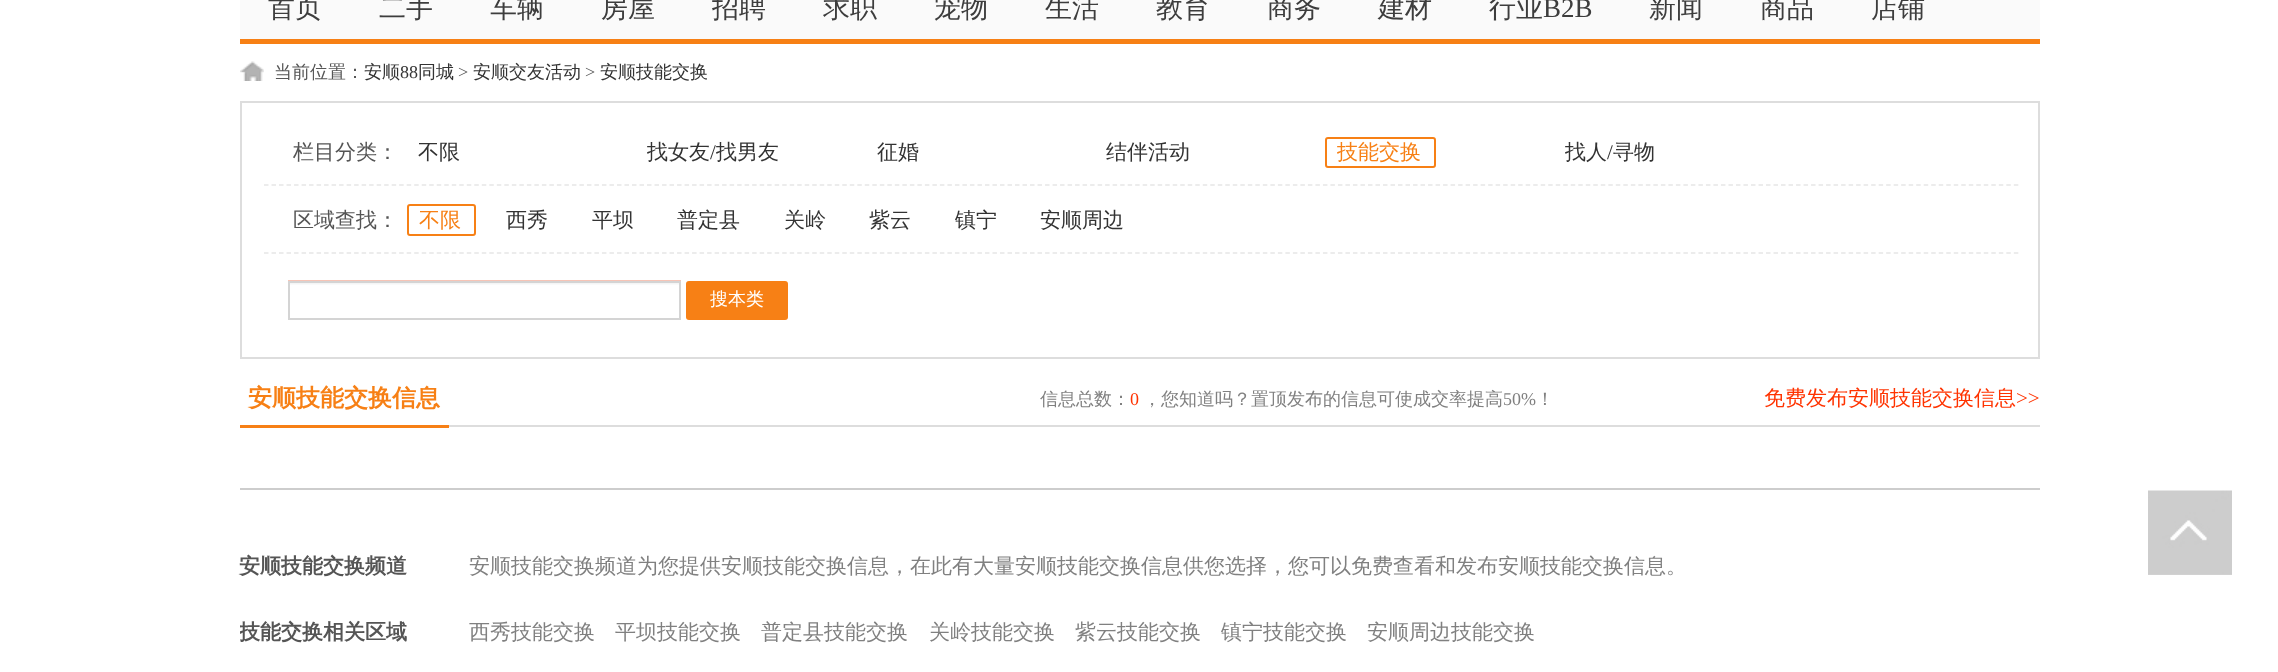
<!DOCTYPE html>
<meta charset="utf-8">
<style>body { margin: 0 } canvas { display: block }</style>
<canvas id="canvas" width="2278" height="672"></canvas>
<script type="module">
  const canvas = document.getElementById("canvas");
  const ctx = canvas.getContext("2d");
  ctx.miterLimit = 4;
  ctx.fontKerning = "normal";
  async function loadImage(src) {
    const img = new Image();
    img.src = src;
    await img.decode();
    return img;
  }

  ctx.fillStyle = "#ffffff";
  ctx.fillRect(0, 0, 2278, 672);
  ctx.fillStyle = "#fafafa";
  ctx.fillRect(240, 0, 1800, 39);
  ctx.fillStyle = "#f78015";
  ctx.fillRect(240, 39, 1800, 5);
  ctx.font = "500 27px WenQuanYi Zen Hei";
  ctx.fillStyle = "#3d3d3d";
  ctx.fillText("首页", 268, 17);
  ctx.fillText("二手", 379, 17);
  ctx.fillText("车辆", 490, 17);
  ctx.fillText("房屋", 601, 17);
  ctx.fillText("招聘", 712, 17);
  ctx.fillText("求职", 823, 17);
  ctx.fillText("宠物", 934, 17);
  ctx.fillText("生活", 1045, 17);
  ctx.fillText("教育", 1156, 17);
  ctx.fillText("商务", 1267, 17);
  ctx.fillText("建材", 1378, 17);
  ctx.fillText("行业", 1489, 17);
  ctx.font = "27px Liberation Serif";
  ctx.fillText("B2B", 1543, 17);
  ctx.font = "500 27px WenQuanYi Zen Hei";
  ctx.fillText("新闻", 1649, 17);
  ctx.fillText("商品", 1760, 17);
  ctx.fillText("店铺", 1871, 17);
  ctx.drawImage(await loadImage("img1.png"), 240, 61, 24, 20);
  ctx.font = "500 18px WenQuanYi Zen Hei";
  ctx.fillStyle = "#555555";
  ctx.fillText("当前位置：", 274, 78);
  ctx.fillStyle = "#333333";
  ctx.fillText("安顺", 364, 78);
  ctx.font = "18px Liberation Serif";
  ctx.fillText("88", 400, 78);
  ctx.font = "500 18px WenQuanYi Zen Hei";
  ctx.fillText("同城", 418, 78);
  ctx.font = "18px Liberation Serif";
  ctx.fillStyle = "#555555";
  ctx.fillText(">", 458, 78);
  ctx.font = "500 18px WenQuanYi Zen Hei";
  ctx.fillStyle = "#333333";
  ctx.fillText("安顺交友活动", 473, 78);
  ctx.font = "18px Liberation Serif";
  ctx.fillStyle = "#555555";
  ctx.fillText(">", 585, 78);
  ctx.font = "500 18px WenQuanYi Zen Hei";
  ctx.fillStyle = "#333333";
  ctx.fillText("安顺技能交换", 600, 78);
  ctx.strokeStyle = "#dddddd";
  ctx.lineWidth = 2;
  ctx.strokeRect(241, 102, 1798, 256);
  ctx.beginPath();
  ctx.moveTo(264, 185);
  ctx.lineTo(2019, 185);
  ctx.strokeStyle = "#e6e6e6";
  ctx.lineWidth = 1.5;
  ctx.setLineDash([4.5, 3.01]);
  ctx.stroke();
  ctx.font = "500 21px WenQuanYi Zen Hei";
  ctx.fillStyle = "#555555";
  ctx.fillText("栏目分类：", 293, 159);
  ctx.fillStyle = "#333333";
  ctx.fillText("不限", 418, 159);
  ctx.fillText("找女友", 647, 159);
  ctx.font = "21px Liberation Serif";
  ctx.fillText("/", 710, 159);
  ctx.font = "500 21px WenQuanYi Zen Hei";
  ctx.fillText("找男友", 716, 159);
  ctx.fillText("征婚", 877, 159);
  ctx.fillText("结伴活动", 1106, 159);
  ctx.beginPath();
  ctx.roundRect(1326, 138, 109, 29, 2);
  ctx.strokeStyle = "#f78015";
  ctx.lineWidth = 2;
  ctx.setLineDash([]);
  ctx.stroke();
  ctx.fillStyle = "#f78015";
  ctx.fillText("技能交换", 1337, 159);
  ctx.fillStyle = "#333333";
  ctx.fillText("找人", 1565, 159);
  ctx.font = "21px Liberation Serif";
  ctx.fillText("/", 1607, 159);
  ctx.font = "500 21px WenQuanYi Zen Hei";
  ctx.fillText("寻物", 1613, 159);
  ctx.beginPath();
  ctx.moveTo(264, 253);
  ctx.lineTo(2019, 253);
  ctx.strokeStyle = "#e6e6e6";
  ctx.lineWidth = 1.5;
  ctx.setLineDash([4.5, 3.01]);
  ctx.stroke();
  ctx.fillStyle = "#555555";
  ctx.fillText("区域查找：", 293, 227);
  ctx.beginPath();
  ctx.roundRect(408, 205, 67, 30, 2);
  ctx.strokeStyle = "#f78015";
  ctx.lineWidth = 2;
  ctx.setLineDash([]);
  ctx.stroke();
  ctx.fillStyle = "#f78015";
  ctx.fillText("不限", 419, 227);
  ctx.fillStyle = "#333333";
  ctx.fillText("西秀", 506, 227);
  ctx.fillText("平坝", 592, 227);
  ctx.fillText("普定县", 677, 227);
  ctx.fillText("关岭", 784, 227);
  ctx.fillText("紫云", 869, 227);
  ctx.fillText("镇宁", 955, 227);
  ctx.fillText("安顺周边", 1040, 227);
  ctx.drawImage(await loadImage("img2.png"), 288, 280, 393, 5);
  ctx.strokeStyle = "#d4d4d4";
  ctx.strokeRect(289, 282, 391, 37);
  ctx.fillStyle = "#f78015";
  ctx.beginPath();
  ctx.roundRect(686, 281, 102, 39, 3);
  ctx.fill();
  ctx.font = "500 18px WenQuanYi Zen Hei";
  ctx.fillStyle = "#ffffff";
  ctx.fillText("搜本类", 710, 305);
  ctx.fillStyle = "#dddddd";
  ctx.fillRect(449, 425, 1591, 2);
  ctx.fillStyle = "#f78015";
  ctx.fillRect(240, 425, 209, 3);
  ctx.font = "bold 24px WenQuanYi Zen Hei";
  ctx.fillText("安顺技能交换信息", 248, 406);
  ctx.font = "500 18px WenQuanYi Zen Hei";
  ctx.fillStyle = "#808080";
  ctx.fillText("信息总数：", 1040, 405);
  ctx.font = "18px Liberation Serif";
  ctx.fillStyle = "#ff3300";
  ctx.fillText("0", 1130, 405);
  ctx.font = "500 18px WenQuanYi Zen Hei";
  ctx.fillStyle = "#808080";
  ctx.fillText("，您知道吗？置顶发布的信息可使成交率提高", 1143, 405);
  ctx.font = "18px Liberation Serif";
  ctx.fillText("50%", 1503, 405);
  ctx.font = "500 18px WenQuanYi Zen Hei";
  ctx.fillText("！", 1536, 405);
  ctx.font = "500 21px WenQuanYi Zen Hei";
  ctx.fillStyle = "#ff3300";
  ctx.fillText("免费发布安顺技能交换信息", 1764, 405);
  ctx.font = "21px Liberation Serif";
  ctx.fillText(">>", 2016, 405);
  ctx.fillStyle = "#d1d1d1";
  ctx.fillRect(2148, 574, 84, 1);
  ctx.drawImage(await loadImage("img3.png"), 2148, 490, 84, 84);
  ctx.fillStyle = "#cdcdcd";
  ctx.fillRect(240, 488, 1800, 2);
  ctx.font = "bold 21px WenQuanYi Zen Hei";
  ctx.fillStyle = "#555555";
  ctx.fillText("安顺技能交换频道", 239, 573);
  ctx.font = "500 21px WenQuanYi Zen Hei";
  ctx.fillStyle = "#808080";
  ctx.fillText("安顺技能交换频道为您提供安顺技能交换信息，在此有大量安顺技能交换信息供您选择，您可以免费查看和发布安顺技能交换信息。", 469, 573);
  ctx.save();
  ctx.beginPath();
  ctx.rect(240, 600, 1767, 66);
  ctx.clip();
  ctx.font = "bold 21px WenQuanYi Zen Hei";
  ctx.fillStyle = "#555555";
  ctx.fillText("技能交换相关区域", 239, 639);
  ctx.restore();
  ctx.fillText("西秀技能交换", 469, 639);
  ctx.fillText("平坝技能交换", 615, 639);
  ctx.fillText("普定县技能交换", 761, 639);
  ctx.fillText("关岭技能交换", 929, 639);
  ctx.fillText("紫云技能交换", 1075, 639);
  ctx.fillText("镇宁技能交换", 1221, 639);
  ctx.fillText("安顺周边技能交换", 1367, 639);
</script>
